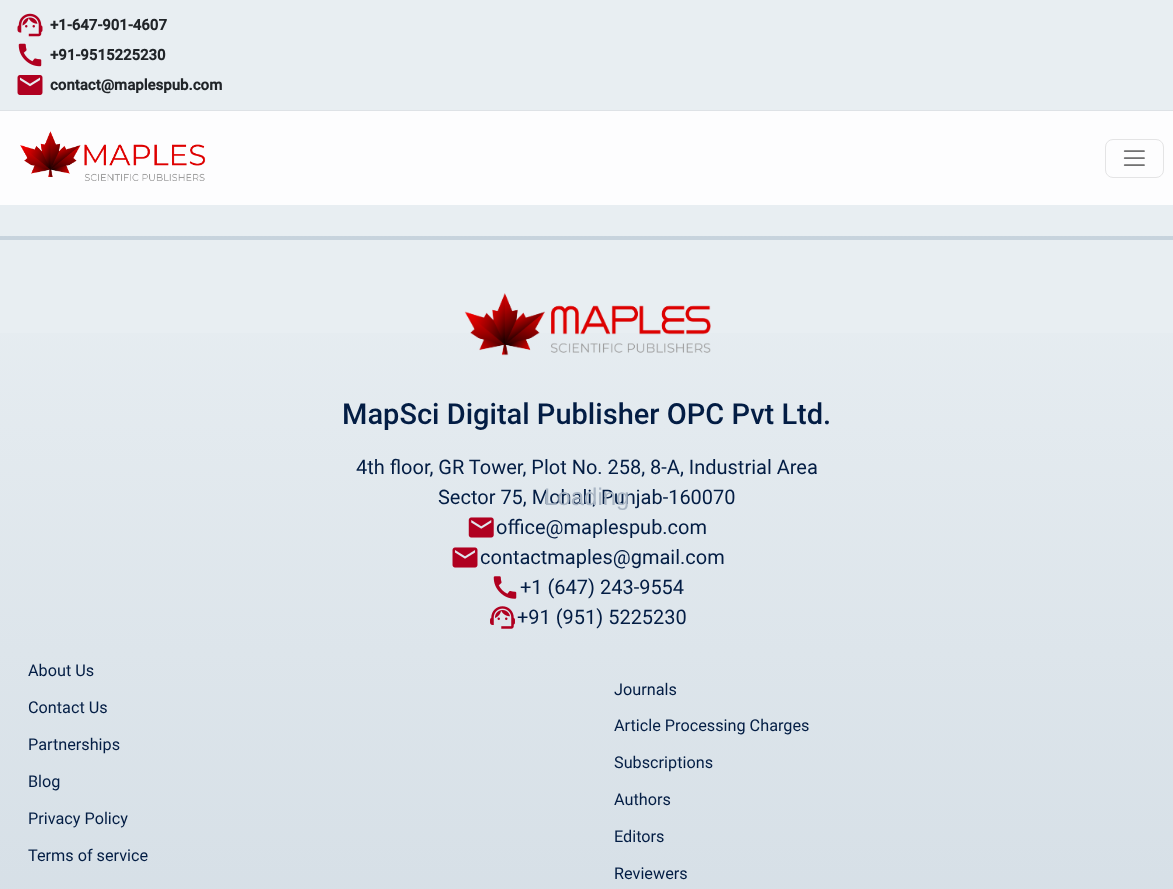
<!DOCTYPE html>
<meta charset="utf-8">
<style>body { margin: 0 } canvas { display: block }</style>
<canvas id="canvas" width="1173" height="889"></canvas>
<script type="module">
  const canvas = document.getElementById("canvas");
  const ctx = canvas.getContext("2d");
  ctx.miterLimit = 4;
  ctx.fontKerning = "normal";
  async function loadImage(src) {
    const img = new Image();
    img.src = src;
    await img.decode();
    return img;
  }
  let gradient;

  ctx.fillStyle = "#e8eef2";
  ctx.fillRect(0, 0, 1173, 889);
  ctx.fillStyle = "#dee2e6";
  ctx.fillRect(0, 110, 1173, 1);
  ctx.drawImage(await loadImage("img1.png"), 17, 13, 26, 24);
  ctx.font = "bold 15px Roboto";
  ctx.fillStyle = "#212529";
  ctx.fillText("+1-647-901-4607", 50, 30);
  ctx.drawImage(await loadImage("img2.png"), 18, 43, 24, 24);
  ctx.fillText("+91-9515225230", 50, 60);
  ctx.drawImage(await loadImage("img3.png"), 17, 75, 26, 20);
  ctx.fillText("contact@maplespub.com", 50, 90);
  ctx.fillStyle = "#fdfdfe";
  ctx.fillRect(0, 111, 1173, 94);
  ctx.drawImage(await loadImage("img4.png"), 20, 131, 186, 50);
  ctx.beginPath();
  ctx.roundRect(1105.5, 139.5, 58, 38, 7.5);
  ctx.strokeStyle = "#e4e4e5";
  ctx.stroke();
  ctx.drawImage(await loadImage("img5.png"), 1123, 150, 22, 16);
  gradient = ctx.createLinearGradient(587, -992, 587, 240);
  gradient.addColorStop(0, "#e8eef2");
  gradient.addColorStop(1, "#c7d3dd");
  ctx.fillStyle = gradient;
  ctx.fillRect(0, 236, 1173, 4);
  gradient = ctx.createLinearGradient(587, 240, 587, 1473);
  gradient.addColorStop(0, "#e8eef2");
  gradient.addColorStop(1, "#c7d3dd");
  ctx.fillStyle = gradient;
  ctx.fillRect(0, 333, 1173, 556);
  ctx.drawImage(await loadImage("img6.png"), 464, 293, 247, 63);
  ctx.font = "500 29px Roboto";
  ctx.fillStyle = "#031d44";
  ctx.fillText("MapSci Digital Publisher OPC Pvt Ltd.", 342, 424);
  ctx.font = "20px Roboto";
  ctx.fillText("4th floor, GR Tower, Plot No. 258, 8-A, Industrial Area", 356, 474);
  ctx.fillText("Sector 75, Mohali, Punjab-160070", 438, 504);
  ctx.drawImage(await loadImage("img7.png"), 468, 517, 26, 21);
  ctx.fillText("office@maplespub.com", 496, 534);
  ctx.drawImage(await loadImage("img8.png"), 452, 547, 26, 21);
  ctx.fillText("contactmaples@gmail.com", 480, 564);
  ctx.drawImage(await loadImage("img9.png"), 493, 576, 24, 23);
  ctx.fillText("+1 (647) 243-9554", 520, 594);
  ctx.drawImage(await loadImage("img10.png"), 490, 606, 25, 23);
  ctx.fillText("+91 (951) 5225230", 517, 624);
  ctx.font = "16.25px Roboto";
  ctx.fillText("About Us", 28, 676);
  ctx.fillText("Contact Us", 28, 713);
  ctx.fillText("Partnerships", 28, 750);
  ctx.fillText("Blog", 28, 787);
  ctx.fillText("Privacy Policy", 28, 824);
  ctx.fillText("Terms of service", 28, 861);
  ctx.fillText("Journals", 614, 695);
  ctx.fillText("Article Processing Charges", 614, 731);
  ctx.fillText("Subscriptions", 614, 768);
  ctx.fillText("Authors", 614, 805);
  ctx.fillText("Editors", 614, 842);
  ctx.fillText("Reviewers", 614, 879);
  ctx.font = "24px Liberation Sans";
  ctx.fillStyle = "#a9b5c3";
  ctx.fillText("Loading", 544, 505);
</script>
